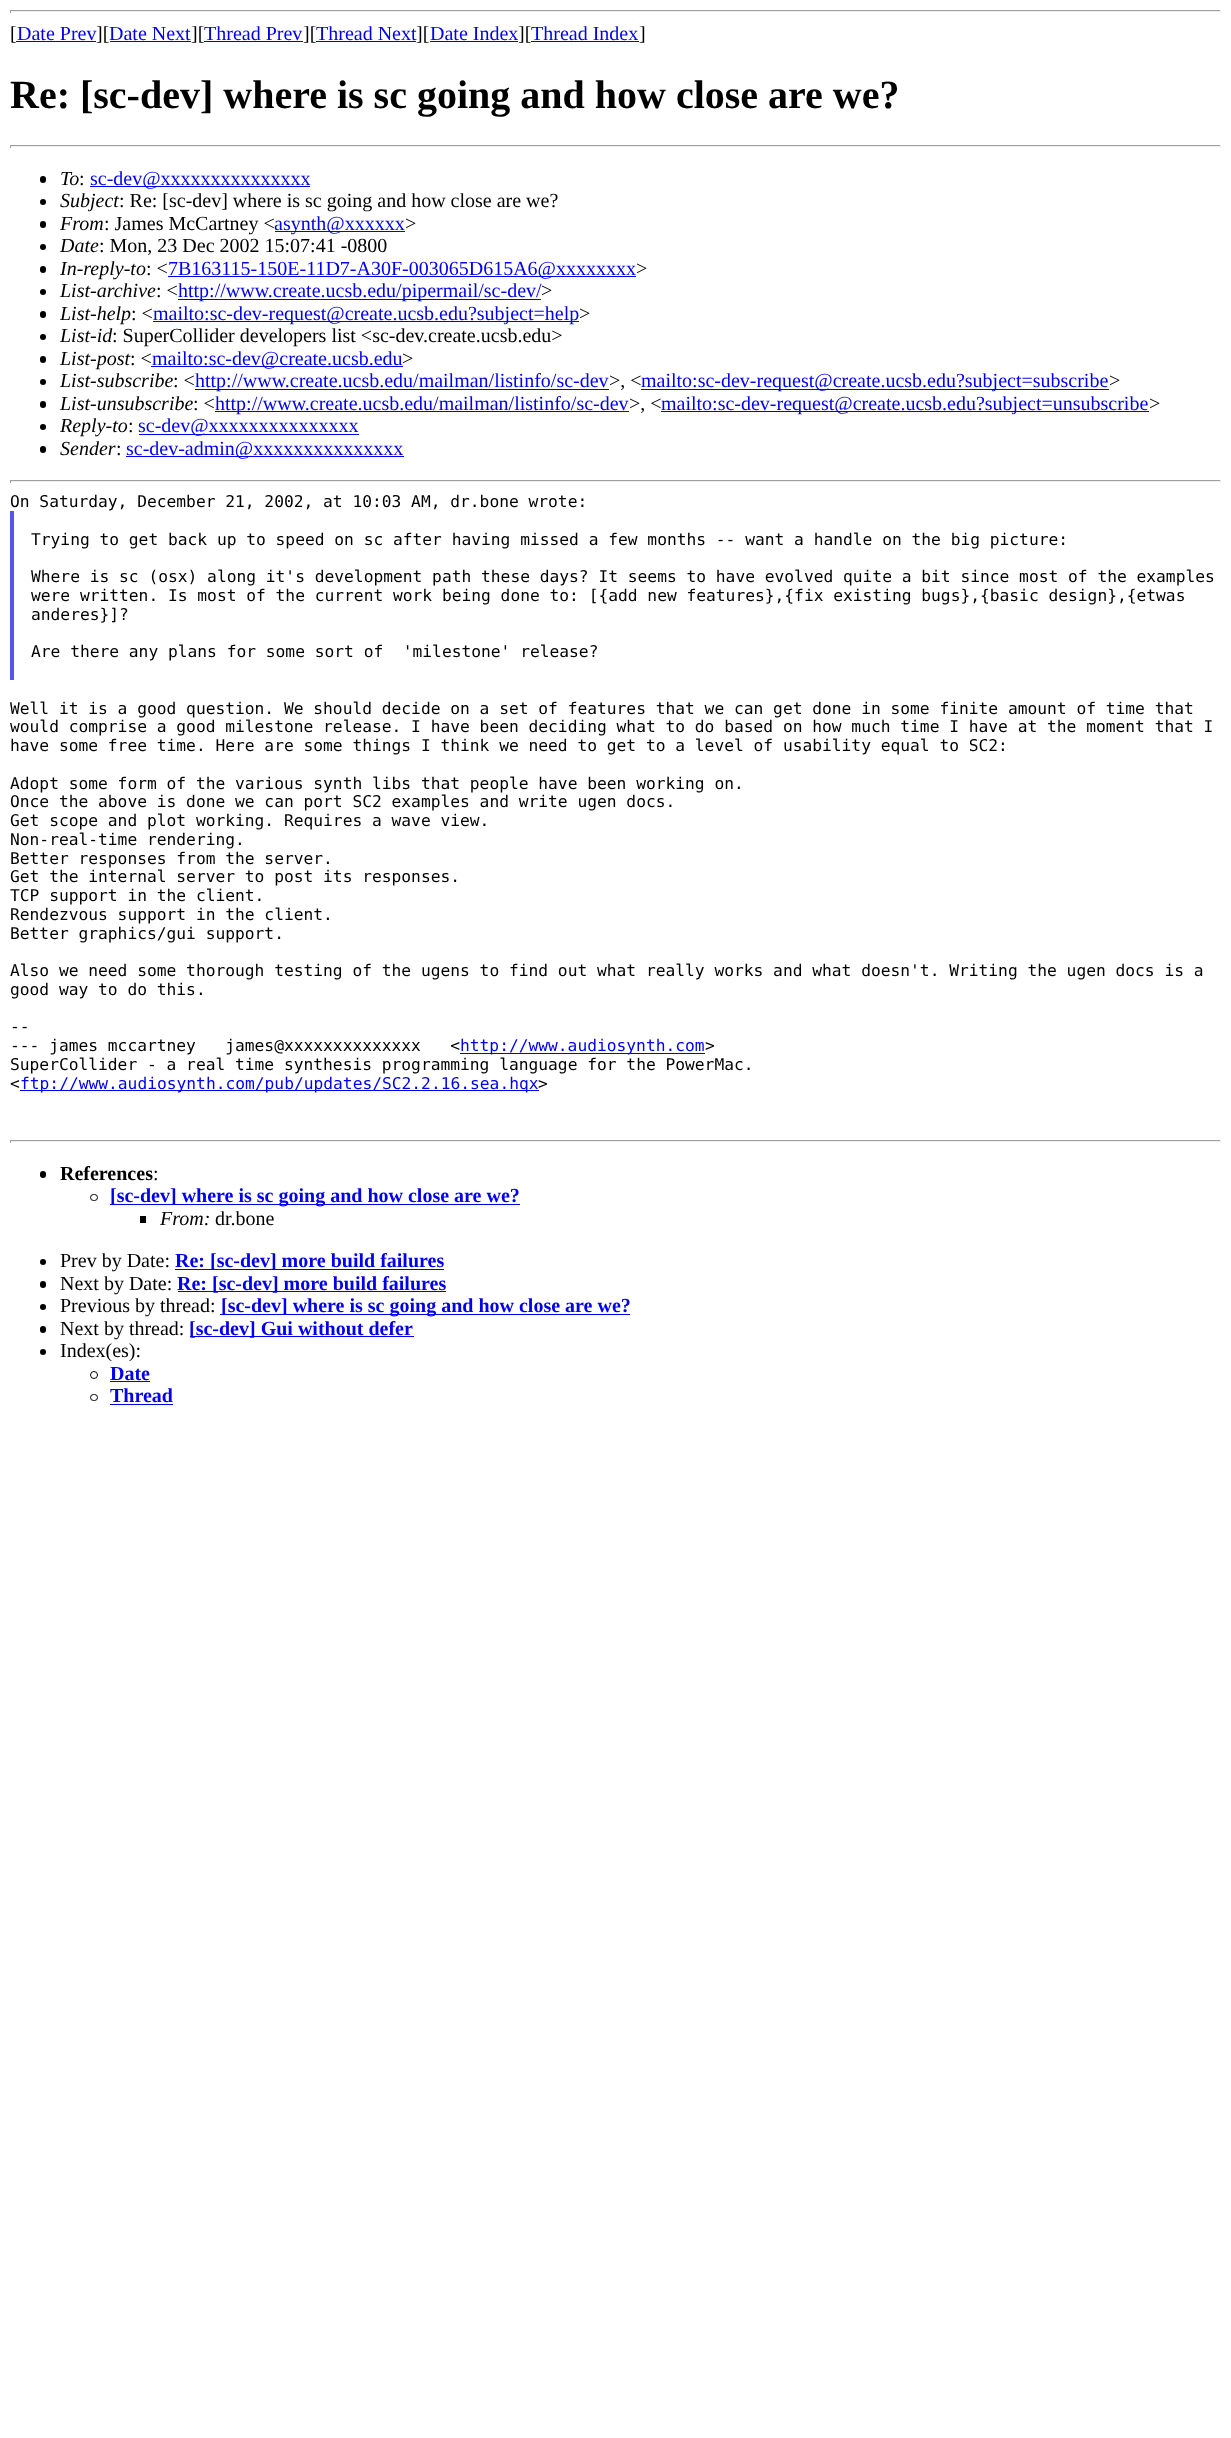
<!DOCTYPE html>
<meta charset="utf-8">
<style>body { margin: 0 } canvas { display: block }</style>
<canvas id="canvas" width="1231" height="2438"></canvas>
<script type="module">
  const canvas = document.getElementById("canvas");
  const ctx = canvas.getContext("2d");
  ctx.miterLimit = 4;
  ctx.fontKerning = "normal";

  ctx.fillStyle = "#ffffff";
  ctx.fillRect(0, 0, 1231, 2438);
  ctx.fillStyle = "#9f9f9f";
  ctx.fillRect(10, 10, 1211, 1);
  ctx.fillStyle = "#eeeeee";
  ctx.fillRect(1220, 10, 1, 3);
  ctx.fillRect(10, 11, 1211, 1);
  ctx.fillStyle = "#9f9f9f";
  ctx.fillRect(10, 10, 1, 3);
  ctx.font = "20px Liberation Serif";
  ctx.fillStyle = "#000000";
  ctx.fillText("[", 10, 40);
  ctx.fillStyle = "#0000ee";
  ctx.fillText("Date Prev", 17, 40);
  ctx.fillRect(16, 41, 80, 1);
  ctx.fillStyle = "#000000";
  ctx.fillText("][", 96, 40);
  ctx.fillStyle = "#0000ee";
  ctx.fillText("Date Next", 109, 40);
  ctx.fillRect(110, 41, 81, 1);
  ctx.fillStyle = "#000000";
  ctx.fillText("][", 191, 40);
  ctx.fillStyle = "#0000ee";
  ctx.fillText("Thread Prev", 204, 40);
  ctx.fillRect(204, 41, 99, 1);
  ctx.fillStyle = "#000000";
  ctx.fillText("][", 303, 40);
  ctx.fillStyle = "#0000ee";
  ctx.fillText("Thread Next", 316, 40);
  ctx.fillRect(316, 41, 100, 1);
  ctx.fillStyle = "#000000";
  ctx.fillText("][", 416, 40);
  ctx.fillStyle = "#0000ee";
  ctx.fillText("Date Index", 430, 40);
  ctx.fillRect(430, 41, 88, 1);
  ctx.fillStyle = "#000000";
  ctx.fillText("][", 518, 40);
  ctx.fillStyle = "#0000ee";
  ctx.fillText("Thread Index", 531, 40);
  ctx.fillRect(531, 41, 108, 1);
  ctx.fillStyle = "#000000";
  ctx.fillText("]", 639, 40);
  ctx.font = "bold 40px Liberation Serif";
  ctx.fillText("Re: [sc-dev] where is sc going and how close are we?", 10, 108);
  ctx.fillStyle = "#9f9f9f";
  ctx.fillRect(10, 145, 1211, 1);
  ctx.fillStyle = "#eeeeee";
  ctx.fillRect(1220, 145, 1, 3);
  ctx.fillRect(10, 146, 1211, 1);
  ctx.fillStyle = "#9f9f9f";
  ctx.fillRect(10, 145, 1, 3);
  ctx.fillStyle = "#000000";
  ctx.beginPath();
  ctx.roundRect(40, 176, 6, 7, 3);
  ctx.fill();
  ctx.font = "italic 20px Liberation Serif";
  ctx.fillText("To", 60, 185);
  ctx.font = "20px Liberation Serif";
  ctx.fillText(":", 79, 185);
  ctx.fillStyle = "#0000ee";
  ctx.fillRect(90, 186, 220, 1);
  ctx.fillText("sc-dev@xxxxxxxxxxxxxxx", 90, 185);
  ctx.fillStyle = "#000000";
  ctx.beginPath();
  ctx.arc(43, 202, 3, 0, Math.PI * 2);
  ctx.fill();
  ctx.font = "italic 20px Liberation Serif";
  ctx.fillText("Subject", 60, 207);
  ctx.font = "20px Liberation Serif";
  ctx.fillText(": Re: [sc-dev] where is sc going and how close are we?", 119, 207);
  ctx.beginPath();
  ctx.roundRect(40, 221, 6, 7, 3);
  ctx.fill();
  ctx.font = "italic 20px Liberation Serif";
  ctx.fillText("From", 60, 230);
  ctx.font = "20px Liberation Serif";
  ctx.fillText(": James McCartney <", 104, 230);
  ctx.fillStyle = "#0000ee";
  ctx.fillRect(275, 231, 130, 1);
  ctx.fillText("asynth@xxxxxx", 274, 230);
  ctx.fillStyle = "#000000";
  ctx.fillText(">", 405, 230);
  ctx.beginPath();
  ctx.arc(43, 247, 3, 0, Math.PI * 2);
  ctx.fill();
  ctx.font = "italic 20px Liberation Serif";
  ctx.fillText("Date", 60, 252);
  ctx.font = "20px Liberation Serif";
  ctx.fillText(": Mon, 23 Dec 2002 15:07:41 -0800", 99, 252);
  ctx.beginPath();
  ctx.roundRect(40, 266, 6, 7, 3);
  ctx.fill();
  ctx.font = "italic 20px Liberation Serif";
  ctx.fillText("In-reply-to", 60, 275);
  ctx.font = "20px Liberation Serif";
  ctx.fillText(": <", 146, 275);
  ctx.fillStyle = "#0000ee";
  ctx.fillRect(168, 276, 468, 1);
  ctx.fillText("7B163115-150E-11D7-A30F-003065D615A6@xxxxxxxx", 168, 275);
  ctx.fillStyle = "#000000";
  ctx.fillText(">", 636, 275);
  ctx.beginPath();
  ctx.arc(43, 292, 3, 0, Math.PI * 2);
  ctx.fill();
  ctx.font = "italic 20px Liberation Serif";
  ctx.fillText("List-archive", 60, 297);
  ctx.font = "20px Liberation Serif";
  ctx.fillText(": <", 156, 297);
  ctx.fillStyle = "#0000ee";
  ctx.fillRect(178, 299, 363, 1);
  ctx.fillText("http://www.create.ucsb.edu/pipermail/sc-dev/", 178, 297);
  ctx.fillStyle = "#000000";
  ctx.fillText(">", 541, 297);
  ctx.beginPath();
  ctx.roundRect(40, 311, 6, 7, 3);
  ctx.fill();
  ctx.font = "italic 20px Liberation Serif";
  ctx.fillText("List-help", 60, 320);
  ctx.font = "20px Liberation Serif";
  ctx.fillText(": <", 131, 320);
  ctx.fillStyle = "#0000ee";
  ctx.fillRect(153, 321, 426, 1);
  ctx.fillText("mailto:sc-dev-request@create.ucsb.edu?subject=help", 153, 320);
  ctx.fillStyle = "#000000";
  ctx.fillText(">", 579, 320);
  ctx.beginPath();
  ctx.arc(43, 337, 3, 0, Math.PI * 2);
  ctx.fill();
  ctx.font = "italic 20px Liberation Serif";
  ctx.fillText("List-id", 60, 342);
  ctx.font = "20px Liberation Serif";
  ctx.fillText(": SuperCollider developers list <sc-dev.create.ucsb.edu>", 112, 342);
  ctx.beginPath();
  ctx.roundRect(40, 356, 6, 7, 3);
  ctx.fill();
  ctx.font = "italic 20px Liberation Serif";
  ctx.fillText("List-post", 60, 365);
  ctx.font = "20px Liberation Serif";
  ctx.fillText(": <", 130, 365);
  ctx.fillStyle = "#0000ee";
  ctx.fillRect(151, 366, 252, 1);
  ctx.fillText("mailto:sc-dev@create.ucsb.edu", 152, 365);
  ctx.fillStyle = "#000000";
  ctx.fillText(">", 402, 365);
  ctx.beginPath();
  ctx.arc(43, 382, 3, 0, Math.PI * 2);
  ctx.fill();
  ctx.font = "italic 20px Liberation Serif";
  ctx.fillText("List-subscribe", 60, 387);
  ctx.font = "20px Liberation Serif";
  ctx.fillText(": <", 173, 387);
  ctx.fillStyle = "#0000ee";
  ctx.fillRect(195, 389, 414, 1);
  ctx.fillText("http://www.create.ucsb.edu/mailman/listinfo/sc-dev", 195, 387);
  ctx.fillStyle = "#000000";
  ctx.fillText(">, <", 609, 387);
  ctx.fillStyle = "#0000ee";
  ctx.fillRect(641, 389, 468, 1);
  ctx.fillText("mailto:sc-dev-request@create.ucsb.edu?subject=subscribe", 641, 387);
  ctx.fillStyle = "#000000";
  ctx.fillText(">", 1109, 387);
  ctx.beginPath();
  ctx.roundRect(40, 401, 6, 7, 3);
  ctx.fill();
  ctx.font = "italic 20px Liberation Serif";
  ctx.fillText("List-unsubscribe", 60, 410);
  ctx.font = "20px Liberation Serif";
  ctx.fillText(": <", 193, 410);
  ctx.fillStyle = "#0000ee";
  ctx.fillRect(215, 411, 414, 1);
  ctx.fillText("http://www.create.ucsb.edu/mailman/listinfo/sc-dev", 215, 410);
  ctx.fillStyle = "#000000";
  ctx.fillText(">, <", 629, 410);
  ctx.fillStyle = "#0000ee";
  ctx.fillRect(661, 411, 488, 1);
  ctx.fillText("mailto:sc-dev-request@create.ucsb.edu?subject=unsubscribe", 661, 410);
  ctx.fillStyle = "#000000";
  ctx.fillText(">", 1149, 410);
  ctx.beginPath();
  ctx.arc(43, 427, 3, 0, Math.PI * 2);
  ctx.fill();
  ctx.font = "italic 20px Liberation Serif";
  ctx.fillText("Reply-to", 60, 432);
  ctx.font = "20px Liberation Serif";
  ctx.fillText(":", 128, 432);
  ctx.fillStyle = "#0000ee";
  ctx.fillRect(139, 434, 220, 1);
  ctx.fillText("sc-dev@xxxxxxxxxxxxxxx", 138, 432);
  ctx.fillStyle = "#000000";
  ctx.beginPath();
  ctx.roundRect(40, 446, 6, 7, 3);
  ctx.fill();
  ctx.font = "italic 20px Liberation Serif";
  ctx.fillText("Sender", 60, 455);
  ctx.font = "20px Liberation Serif";
  ctx.fillText(":", 116, 455);
  ctx.fillStyle = "#0000ee";
  ctx.fillRect(126, 456, 278, 1);
  ctx.fillText("sc-dev-admin@xxxxxxxxxxxxxxx", 126, 455);
  ctx.fillStyle = "#9f9f9f";
  ctx.fillRect(10, 480, 1211, 1);
  ctx.fillStyle = "#eeeeee";
  ctx.fillRect(1220, 480, 1, 3);
  ctx.fillRect(10, 481, 1211, 1);
  ctx.fillStyle = "#9f9f9f";
  ctx.fillRect(10, 480, 1, 3);
  ctx.font = "16.25px DejaVu Sans Mono";
  ctx.fillStyle = "#000000";
  ctx.fillText("On Saturday, December 21, 2002, at 10:03 AM, dr.bone wrote:", 10, 507);
  ctx.fillStyle = "#5555ee";
  ctx.fillRect(10, 511, 4, 169);
  ctx.fillStyle = "#000000";
  ctx.fillText("Trying to get back up to speed on sc after having missed a few months -- want a handle on the big picture:", 31, 545);
  ctx.fillText("Where is sc (osx) along it's development path these days? It seems to have evolved quite a bit since most of the examples", 31, 582);
  ctx.fillText("were written. Is most of the current work being done to: [{add new features},{fix existing bugs},{basic design},{etwas", 31, 601);
  ctx.fillText("anderes}]?", 31, 620);
  ctx.fillText("Are there any plans for some sort of  'milestone' release?", 31, 657);
  ctx.fillText("Well it is a good question. We should decide on a set of features that we can get done in some finite amount of time that", 10, 714);
  ctx.fillText("would comprise a good milestone release. I have been deciding what to do based on how much time I have at the moment that I", 10, 732);
  ctx.fillText("have some free time. Here are some things I think we need to get to a level of usability equal to SC2:", 10, 751);
  ctx.fillText("Adopt some form of the various synth libs that people have been working on.", 10, 789);
  ctx.fillText("Once the above is done we can port SC2 examples and write ugen docs.", 10, 807);
  ctx.fillText("Get scope and plot working. Requires a wave view.", 10, 826);
  ctx.fillText("Non-real-time rendering.", 10, 845);
  ctx.fillText("Better responses from the server.", 10, 864);
  ctx.fillText("Get the internal server to post its responses.", 10, 882);
  ctx.fillText("TCP support in the client.", 10, 901);
  ctx.fillText("Rendezvous support in the client.", 10, 920);
  ctx.fillText("Better graphics/gui support.", 10, 939);
  ctx.fillText("Also we need some thorough testing of the ugens to find out what really works and what doesn't. Writing the ugen docs is a", 10, 976);
  ctx.fillText("good way to do this.", 10, 995);
  ctx.fillText("--", 10, 1032);
  ctx.fillText("--- james mccartney   james@xxxxxxxxxxxxxx   <", 10, 1051);
  ctx.fillStyle = "#0000ee";
  ctx.fillRect(460, 1053, 245, 1);
  ctx.fillText("http://www.audiosynth.com", 460, 1051);
  ctx.fillStyle = "#000000";
  ctx.fillText(">", 705, 1051);
  ctx.fillText("SuperCollider - a real time synthesis programming language for the PowerMac.", 10, 1070);
  ctx.fillText("<", 10, 1089);
  ctx.fillStyle = "#0000ee";
  ctx.fillRect(20, 1090, 519, 1);
  ctx.fillText("ftp://www.audiosynth.com/pub/updates/SC2.2.16.sea.hqx", 20, 1089);
  ctx.fillStyle = "#000000";
  ctx.fillText(">", 538, 1089);
  ctx.fillStyle = "#9f9f9f";
  ctx.fillRect(10, 1140, 1211, 1);
  ctx.fillStyle = "#eeeeee";
  ctx.fillRect(1220, 1140, 1, 3);
  ctx.fillRect(10, 1141, 1211, 1);
  ctx.fillStyle = "#9f9f9f";
  ctx.fillRect(10, 1140, 1, 3);
  ctx.fillStyle = "#000000";
  ctx.beginPath();
  ctx.roundRect(40, 1171, 6, 7, 3);
  ctx.fill();
  ctx.font = "bold 20px Liberation Serif";
  ctx.fillText("References", 60, 1180);
  ctx.font = "20px Liberation Serif";
  ctx.fillText(":", 153, 1180);
  ctx.beginPath();
  ctx.roundRect(90.5, 1194.5, 7, 6, 3);
  ctx.strokeStyle = "#000000";
  ctx.stroke();
  ctx.fillStyle = "#0000ee";
  ctx.fillRect(110, 1204, 410, 1);
  ctx.font = "bold 20px Liberation Serif";
  ctx.fillText("[sc-dev] where is sc going and how close are we?", 110, 1202);
  ctx.fillStyle = "#000000";
  ctx.fillRect(140, 1216, 6, 7);
  ctx.font = "italic 20px Liberation Serif";
  ctx.fillText("From:", 160, 1225);
  ctx.font = "20px Liberation Serif";
  ctx.fillText("dr.bone", 215, 1225);
  ctx.beginPath();
  ctx.arc(43, 1262, 3, 0, Math.PI * 2);
  ctx.fill();
  ctx.fillText("Prev by Date:", 60, 1267);
  ctx.fillStyle = "#0000ee";
  ctx.fillRect(175, 1269, 269, 1);
  ctx.font = "bold 20px Liberation Serif";
  ctx.fillText("Re: [sc-dev] more build failures", 175, 1267);
  ctx.fillStyle = "#000000";
  ctx.beginPath();
  ctx.roundRect(40, 1281, 6, 7, 3);
  ctx.fill();
  ctx.font = "20px Liberation Serif";
  ctx.fillText("Next by Date:", 60, 1290);
  ctx.fillStyle = "#0000ee";
  ctx.fillRect(178, 1291, 268, 1);
  ctx.font = "bold 20px Liberation Serif";
  ctx.fillText("Re: [sc-dev] more build failures", 177, 1290);
  ctx.fillStyle = "#000000";
  ctx.beginPath();
  ctx.arc(43, 1307, 3, 0, Math.PI * 2);
  ctx.fill();
  ctx.font = "20px Liberation Serif";
  ctx.fillText("Previous by thread:", 60, 1312);
  ctx.fillStyle = "#0000ee";
  ctx.fillRect(220, 1314, 410, 1);
  ctx.font = "bold 20px Liberation Serif";
  ctx.fillText("[sc-dev] where is sc going and how close are we?", 221, 1312);
  ctx.fillStyle = "#000000";
  ctx.beginPath();
  ctx.roundRect(40, 1326, 6, 7, 3);
  ctx.fill();
  ctx.font = "20px Liberation Serif";
  ctx.fillText("Next by thread:", 60, 1335);
  ctx.fillStyle = "#0000ee";
  ctx.fillRect(190, 1336, 224, 1);
  ctx.font = "bold 20px Liberation Serif";
  ctx.fillText("[sc-dev] Gui without defer", 189, 1335);
  ctx.fillStyle = "#000000";
  ctx.beginPath();
  ctx.arc(43, 1352, 3, 0, Math.PI * 2);
  ctx.fill();
  ctx.font = "20px Liberation Serif";
  ctx.fillText("Index(es):", 60, 1357);
  ctx.beginPath();
  ctx.arc(94, 1375, 3.5, 0, Math.PI * 2);
  ctx.stroke();
  ctx.font = "bold 20px Liberation Serif";
  ctx.fillStyle = "#0000ee";
  ctx.fillText("Date", 110, 1380);
  ctx.fillRect(110, 1381, 40, 1);
  ctx.beginPath();
  ctx.roundRect(90.5, 1394.5, 7, 6, 3);
  ctx.stroke();
  ctx.fillText("Thread", 110, 1402);
  ctx.fillRect(110, 1404, 63, 1);
</script>
